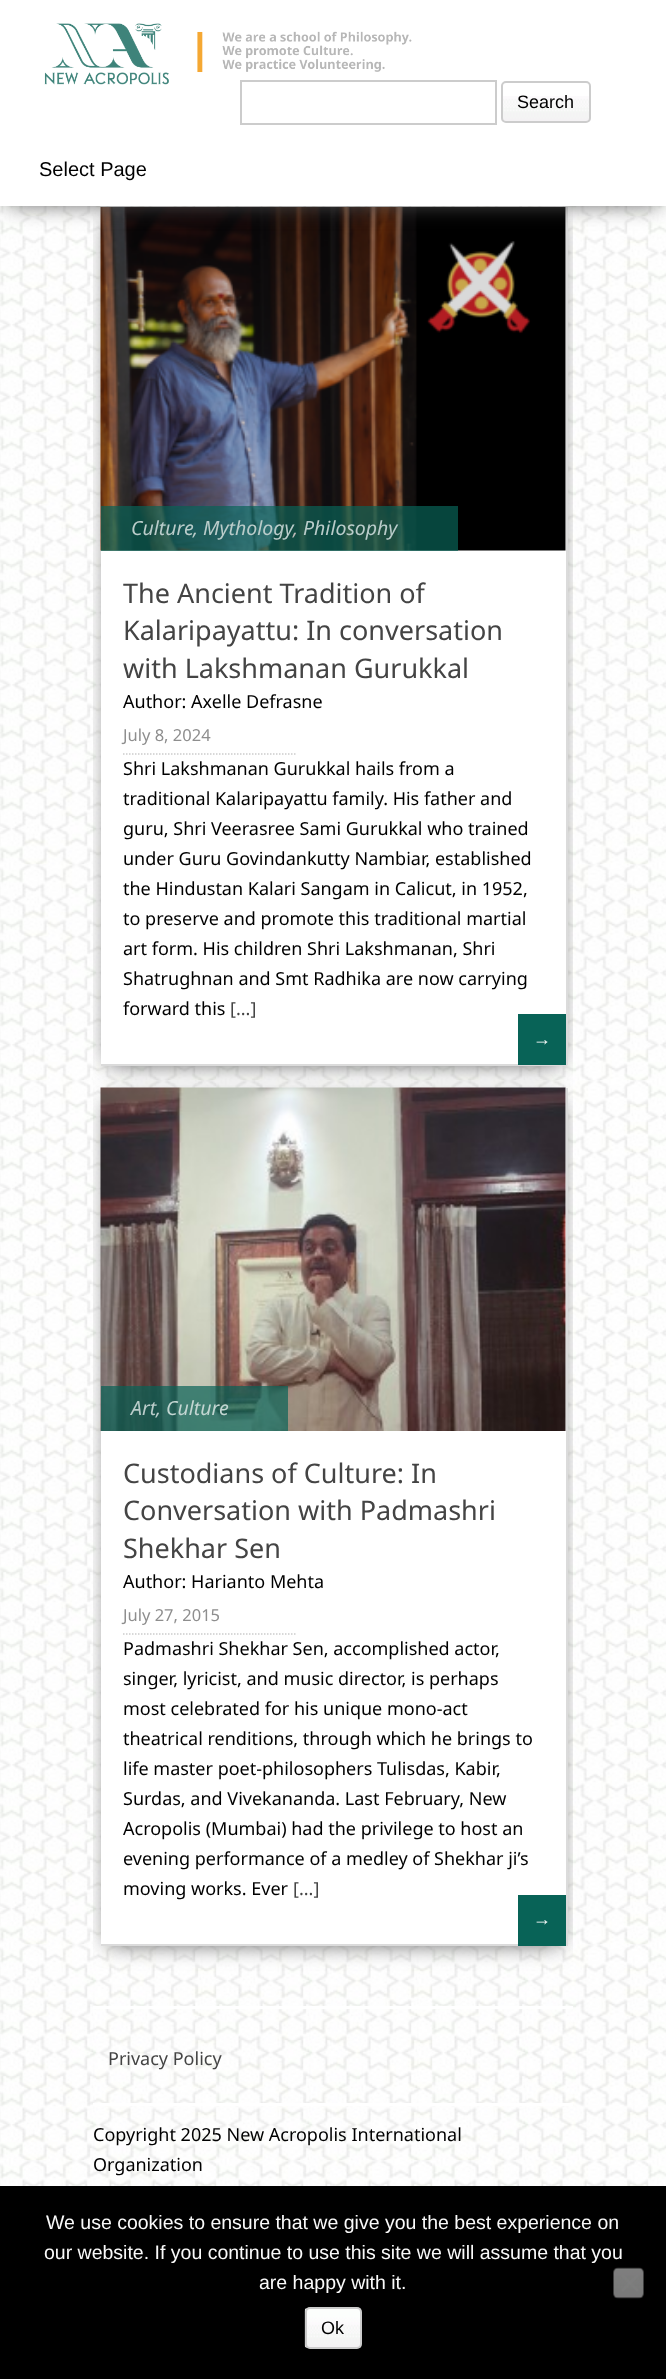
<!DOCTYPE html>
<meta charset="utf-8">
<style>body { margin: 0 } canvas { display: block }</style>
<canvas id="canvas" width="666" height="2379"></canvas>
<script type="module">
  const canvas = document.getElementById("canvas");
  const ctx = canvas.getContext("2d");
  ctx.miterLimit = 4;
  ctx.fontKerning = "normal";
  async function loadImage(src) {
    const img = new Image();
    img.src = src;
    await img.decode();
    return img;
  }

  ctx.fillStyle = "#ffffff";
  ctx.fillRect(0, 0, 666, 2379);
  ctx.drawImage(await loadImage("img1.png"), 0, 206, 666, 1980);
  ctx.save();
  ctx.beginPath();
  ctx.rect(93, 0, 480, 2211);
  ctx.clip();
  ctx.fillStyle = "#555555";
  ctx.filter = "blur(11px)";
  ctx.beginPath();
  ctx.rect(108, 221, 452, 843);
  ctx.fill();
  ctx.filter = "none";
  ctx.restore();
  ctx.fillRect(101, 207, 465, 857);
  ctx.fillStyle = "#dbdbdb";
  ctx.fillRect(566, 207, 2, 858);
  ctx.drawImage(await loadImage("img4.png"), 100, 207, 466, 344);
  ctx.fillStyle = "#555555";
  ctx.filter = "blur(11px)";
  ctx.beginPath();
  ctx.rect(8, 14, 651, 190);
  ctx.fill();
  ctx.filter = "none";
  ctx.fillStyle = "#ffffff";
  ctx.fillRect(0, 0, 666, 206);
  ctx.strokeStyle = "#cccccc";
  ctx.lineWidth = 2;
  ctx.strokeRect(241, 81, 255, 43);
  ctx.drawImage(await loadImage("img2.png"), 44, 23, 368, 62);
  ctx.drawImage(await loadImage("img3.png"), 501, 96, 90, 26);
  ctx.beginPath();
  ctx.roundRect(502, 82, 88, 40, 4);
  ctx.stroke();
  ctx.font = "18px Liberation Sans";
  ctx.fillStyle = "#000000";
  ctx.fillText("Search", 517, 108);
  ctx.font = "20px Liberation Sans";
  ctx.fillText("Select Page", 39, 176);
  ctx.fillStyle = "#dbdbdb";
  ctx.fillRect(101, 1064, 466, 2);
  ctx.fillStyle = "rgba(8, 99, 87, 0.7)";
  ctx.fillRect(101, 506, 357, 45);
  ctx.font = "italic 19.5px Noto Sans";
  ctx.fillStyle = "#baccca";
  ctx.fillText("Culture", 131, 535);
  ctx.fillText(",", 193, 535);
  ctx.fillText("Mythology", 203, 535);
  ctx.fillText("Philosophy", 303, 535);
  ctx.fillStyle = "#beb9b8";
  ctx.fillText(",", 293, 535);
  ctx.font = "27px Noto Sans";
  ctx.fillStyle = "#444444";
  ctx.fillText("The Ancient Tradition of", 123, 603);
  ctx.fillText("Kalaripayattu: In conversation", 123, 640);
  ctx.fillText("with Lakshmanan Gurukkal", 123, 678);
  ctx.font = "18px Noto Sans";
  ctx.fillStyle = "#000000";
  ctx.fillText("Author: Axelle Defrasne", 123, 708);
  ctx.beginPath();
  ctx.moveTo(123, 754);
  ctx.lineTo(295.5, 754);
  ctx.lineWidth = 1.5;
  ctx.setLineDash([1.5, 1.5]);
  ctx.stroke();
  ctx.font = "16.5px Noto Sans";
  ctx.fillStyle = "#8e8e8e";
  ctx.fillText("July 8, 2024", 123, 741);
  ctx.font = "18px Noto Sans";
  ctx.fillStyle = "#000000";
  ctx.fillText("Shri Lakshmanan Gurukkal hails from a", 123, 775);
  ctx.fillText("traditional Kalaripayattu family. His father and", 123, 805);
  ctx.fillText("guru, Shri Veerasree Sami Gurukkal who trained", 123, 835);
  ctx.fillText("under Guru Govindankutty Nambiar, established", 123, 865);
  ctx.fillText("the Hindustan Kalari Sangam in Calicut, in 1952,", 123, 895);
  ctx.fillText("to preserve and promote this traditional martial", 123, 925);
  ctx.fillText("art form. His children Shri Lakshmanan, Shri", 123, 955);
  ctx.fillText("Shatrughnan and Smt Radhika are now carrying", 123, 985);
  ctx.fillText("forward this", 123, 1015);
  ctx.fillStyle = "#444444";
  ctx.fillText("[...]", 230, 1015);
  ctx.fillStyle = "#086357";
  ctx.fillRect(518, 1014, 48, 51);
  ctx.font = "18px Liberation Sans";
  ctx.fillStyle = "#fafafa";
  ctx.fillText("→", 533, 1045);
  ctx.save();
  ctx.beginPath();
  ctx.rect(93, 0, 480, 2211);
  ctx.clip();
  ctx.fillStyle = "#555555";
  ctx.filter = "blur(11px)";
  ctx.beginPath();
  ctx.rect(108, 1101, 452, 843);
  ctx.fill();
  ctx.filter = "none";
  ctx.restore();
  ctx.fillStyle = "#ffffff";
  ctx.fillRect(101, 1088, 465, 856);
  ctx.fillStyle = "#dbdbdb";
  ctx.fillRect(566, 1088, 2, 858);
  ctx.fillRect(101, 1944, 466, 2);
  ctx.drawImage(await loadImage("img5.png"), 100, 1087, 466, 344);
  ctx.fillStyle = "rgba(8, 99, 87, 0.7)";
  ctx.fillRect(101, 1386, 187, 45);
  ctx.font = "italic 19.5px Noto Sans";
  ctx.fillStyle = "#baccca";
  ctx.fillText("Art", 131, 1415);
  ctx.fillStyle = "#c3d6d2";
  ctx.fillText("Culture", 166, 1415);
  ctx.fillStyle = "#baccca";
  ctx.fillText(",", 156, 1415);
  ctx.font = "27px Noto Sans";
  ctx.fillStyle = "#444444";
  ctx.fillText("Custodians of Culture: In", 123, 1483);
  ctx.fillText("Conversation with Padmashri", 123, 1520);
  ctx.fillText("Shekhar Sen", 123, 1558);
  ctx.font = "18px Noto Sans";
  ctx.fillStyle = "#000000";
  ctx.fillText("Author: Harianto Mehta", 123, 1588);
  ctx.beginPath();
  ctx.moveTo(123, 1634);
  ctx.lineTo(295.5, 1634);
  ctx.stroke();
  ctx.font = "16.5px Noto Sans";
  ctx.fillStyle = "#8e8e8e";
  ctx.fillText("July 27, 2015", 123, 1621);
  ctx.font = "18px Noto Sans";
  ctx.fillStyle = "#000000";
  ctx.fillText("Padmashri Shekhar Sen, accomplished actor,", 123, 1655);
  ctx.fillText("singer, lyricist, and music director, is perhaps", 123, 1685);
  ctx.fillText("most celebrated for his unique mono-act", 123, 1715);
  ctx.fillText("theatrical renditions, through which he brings to", 123, 1745);
  ctx.fillText("life master poet-philosophers Tulisdas, Kabir,", 123, 1775);
  ctx.fillText("Surdas, and Vivekananda. Last February, New", 123, 1805);
  ctx.fillText("Acropolis (Mumbai) had the privilege to host an", 123, 1835);
  ctx.fillText("evening performance of a medley of Shekhar ji’s", 123, 1865);
  ctx.fillText("moving works. Ever", 123, 1895);
  ctx.fillStyle = "#444444";
  ctx.fillText("[...]", 293, 1895);
  ctx.fillStyle = "#086357";
  ctx.fillRect(518, 1895, 48, 51);
  ctx.font = "18px Liberation Sans";
  ctx.fillStyle = "#fafafa";
  ctx.fillText("→", 533, 1925);
  ctx.fillStyle = "#ffffff";
  ctx.fillRect(93, 2006, 480, 3);
  ctx.font = "18px Noto Sans";
  ctx.fillStyle = "#444444";
  ctx.fillText("Privacy Policy", 108, 2065);
  ctx.fillStyle = "#ffffff";
  ctx.fillRect(93, 2103, 480, 3);
  ctx.fillStyle = "#000000";
  ctx.fillText("Copyright 2025 New Acropolis International", 93, 2141);
  ctx.fillText("Organization", 93, 2171);
  ctx.fillRect(0, 2186, 666, 193);
  ctx.font = "19.5px Liberation Sans";
  ctx.fillStyle = "#fafafa";
  ctx.fillText("We use cookies to ensure that we give you the best experience on", 46, 2229);
  ctx.fillText("our website. If you continue to use this site we will assume that you", 44, 2259);
  ctx.fillText("are happy with it.", 259, 2289);
  ctx.drawImage(await loadImage("img6.png"), 613, 2267, 31, 32);
  ctx.fillStyle = "rgba(128, 128, 128, 0.5)";
  ctx.beginPath();
  ctx.moveTo(637, 2274);
  ctx.lineTo(639, 2276);
  ctx.lineTo(623, 2292);
  ctx.lineTo(621, 2290);
  ctx.closePath();
  ctx.fill();
  ctx.beginPath();
  ctx.moveTo(621, 2276);
  ctx.lineTo(623, 2274);
  ctx.lineTo(639, 2290);
  ctx.lineTo(637, 2292);
  ctx.closePath();
  ctx.fill();
  ctx.drawImage(await loadImage("img7.png"), 304, 2308, 58, 40);
  ctx.beginPath();
  ctx.roundRect(306, 2308, 55, 40, 4);
  ctx.lineWidth = 2;
  ctx.setLineDash([]);
  ctx.stroke();
  ctx.font = "18px Liberation Sans";
  ctx.fillStyle = "#000000";
  ctx.fillText("Ok", 321, 2334);
</script>
